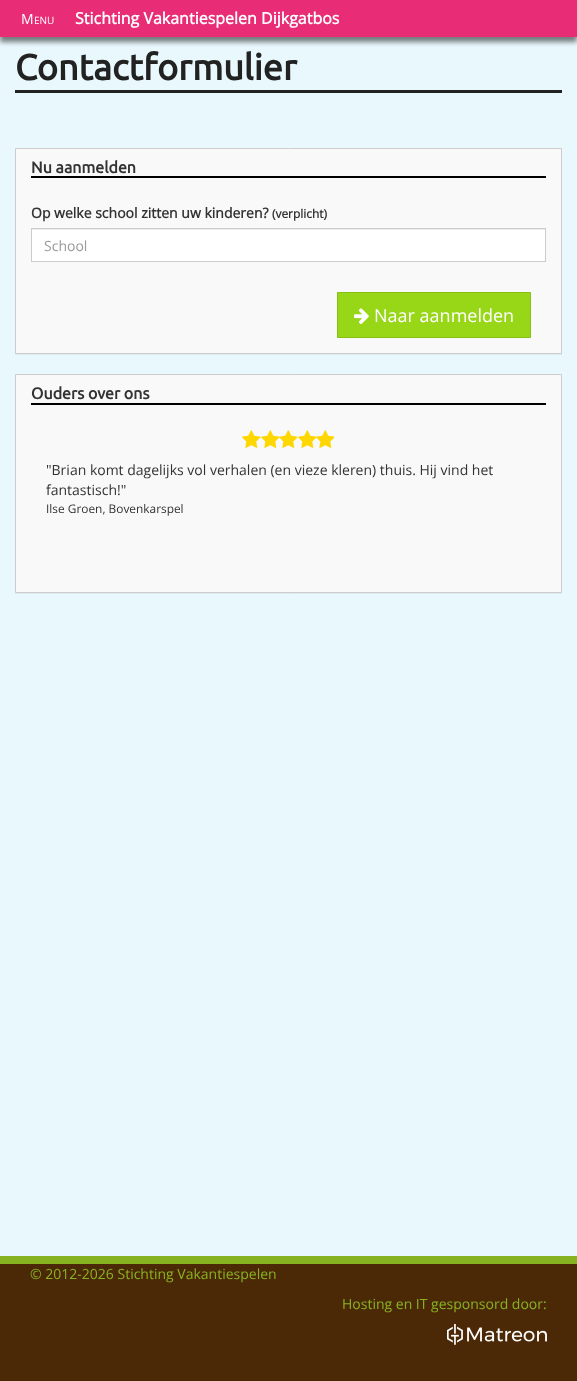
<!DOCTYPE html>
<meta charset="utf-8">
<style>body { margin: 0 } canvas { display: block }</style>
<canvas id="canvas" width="577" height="1381"></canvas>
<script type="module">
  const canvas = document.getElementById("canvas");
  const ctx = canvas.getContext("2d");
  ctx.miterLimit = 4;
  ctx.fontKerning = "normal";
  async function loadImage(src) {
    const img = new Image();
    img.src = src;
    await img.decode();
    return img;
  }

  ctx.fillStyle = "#e9f8fc";
  ctx.fillRect(0, 0, 577, 1381);
  ctx.fillStyle = "rgba(0, 0, 0, 0.5)";
  ctx.filter = "blur(2.5px)";
  ctx.beginPath();
  ctx.rect(0, 5, 577, 37);
  ctx.fill();
  ctx.filter = "none";
  ctx.fillStyle = "#e82d76";
  ctx.fillRect(0, 0, 577, 37);
  ctx.font = "14px Open Sans";
  ctx.fillStyle = "#ffffff";
  ctx.fillText("M", 21, 24);
  ctx.font = "10px Open Sans";
  ctx.fillText("ENU", 34, 24);
  ctx.font = "bold 16px Open Sans";
  ctx.fillText("Stichting Vakantiespelen Dijkgatbos", 75, 24);
  ctx.fillStyle = "#222222";
  ctx.fillRect(15, 90, 547, 3);
  ctx.font = "bold 36px Ubuntu";
  ctx.fillText("Contactformulier", 15, 80);
  ctx.fillStyle = "rgba(0, 0, 0, 0.05)";
  ctx.filter = "blur(0.5px)";
  ctx.beginPath();
  ctx.rect(15, 149, 547, 206);
  ctx.fill();
  ctx.filter = "none";
  ctx.fillStyle = "#f9f9f9";
  ctx.beginPath();
  ctx.rect(15.5, 148.5, 546, 205);
  ctx.fill();
  ctx.strokeStyle = "#cccccc";
  ctx.stroke();
  ctx.fillStyle = "#000000";
  ctx.fillRect(31, 176, 515, 2);
  ctx.font = "bold 16px Ubuntu";
  ctx.fillStyle = "#333333";
  ctx.fillText("Nu aanmelden", 31, 173);
  ctx.font = "bold 14px Open Sans";
  ctx.fillText("Op welke school zitten uw kinderen?", 31, 218);
  ctx.font = "bold 11.9px Open Sans";
  ctx.fillText("(verplicht)", 272, 218);
  ctx.fillStyle = "#ffffff";
  ctx.fillRect(32, 230, 513, 31);
  ctx.fillStyle = "#ececec";
  ctx.fillRect(32, 229, 513, 1);
  ctx.strokeRect(31.5, 228.5, 514, 33);
  ctx.font = "14px Open Sans";
  ctx.fillStyle = "#999999";
  ctx.fillText("School", 44, 251);
  ctx.fillStyle = "#98d618";
  ctx.beginPath();
  ctx.rect(337.5, 292.5, 193, 45);
  ctx.fill();
  ctx.strokeStyle = "#88bf15";
  ctx.stroke();
  ctx.drawImage(await loadImage("img1.png"), 354, 308, 15, 16);
  ctx.font = "18px Open Sans";
  ctx.fillStyle = "#ffffff";
  ctx.fillText("Naar aanmelden", 374, 322);
  ctx.fillStyle = "rgba(0, 0, 0, 0.05)";
  ctx.filter = "blur(0.5px)";
  ctx.beginPath();
  ctx.rect(15, 375, 547, 219);
  ctx.fill();
  ctx.filter = "none";
  ctx.fillStyle = "#f9f9f9";
  ctx.beginPath();
  ctx.rect(15.5, 374.5, 546, 218);
  ctx.fill();
  ctx.strokeStyle = "#cccccc";
  ctx.stroke();
  ctx.fillStyle = "#000000";
  ctx.fillRect(31, 403, 515, 2);
  ctx.font = "bold 16px Ubuntu";
  ctx.fillStyle = "#333333";
  ctx.fillText("Ouders over ons", 31, 399);
  ctx.drawImage(await loadImage("img2.png"), 242, 430, 19, 18);
  ctx.drawImage(await loadImage("img2.png"), 261, 430, 19, 18);
  ctx.drawImage(await loadImage("img3.png"), 279, 430, 19, 18);
  ctx.drawImage(await loadImage("img2.png"), 298, 430, 19, 18);
  ctx.drawImage(await loadImage("img3.png"), 316, 430, 19, 18);
  ctx.font = "14px Open Sans";
  ctx.fillText("\"Brian komt dagelijks vol verhalen (en vieze kleren) thuis. Hij vind het", 46, 475);
  ctx.fillText("fantastisch!\"", 46, 495);
  ctx.font = "11.9px Open Sans";
  ctx.fillText("Ilse Groen, Bovenkarspel", 46, 513);
  ctx.fillStyle = "#4b2907";
  ctx.fillRect(0, 1264, 577, 117);
  ctx.fillStyle = "#88b321";
  ctx.fillRect(0, 1256, 577, 8);
  ctx.font = "14px Open Sans";
  ctx.fillText("© 2012-2026 Stichting Vakantiespelen", 30, 1279);
  ctx.fillText("Hosting en IT gesponsord door:", 342, 1309);
  ctx.drawImage(await loadImage("img4.png"), 447, 1324, 100, 21);
</script>
